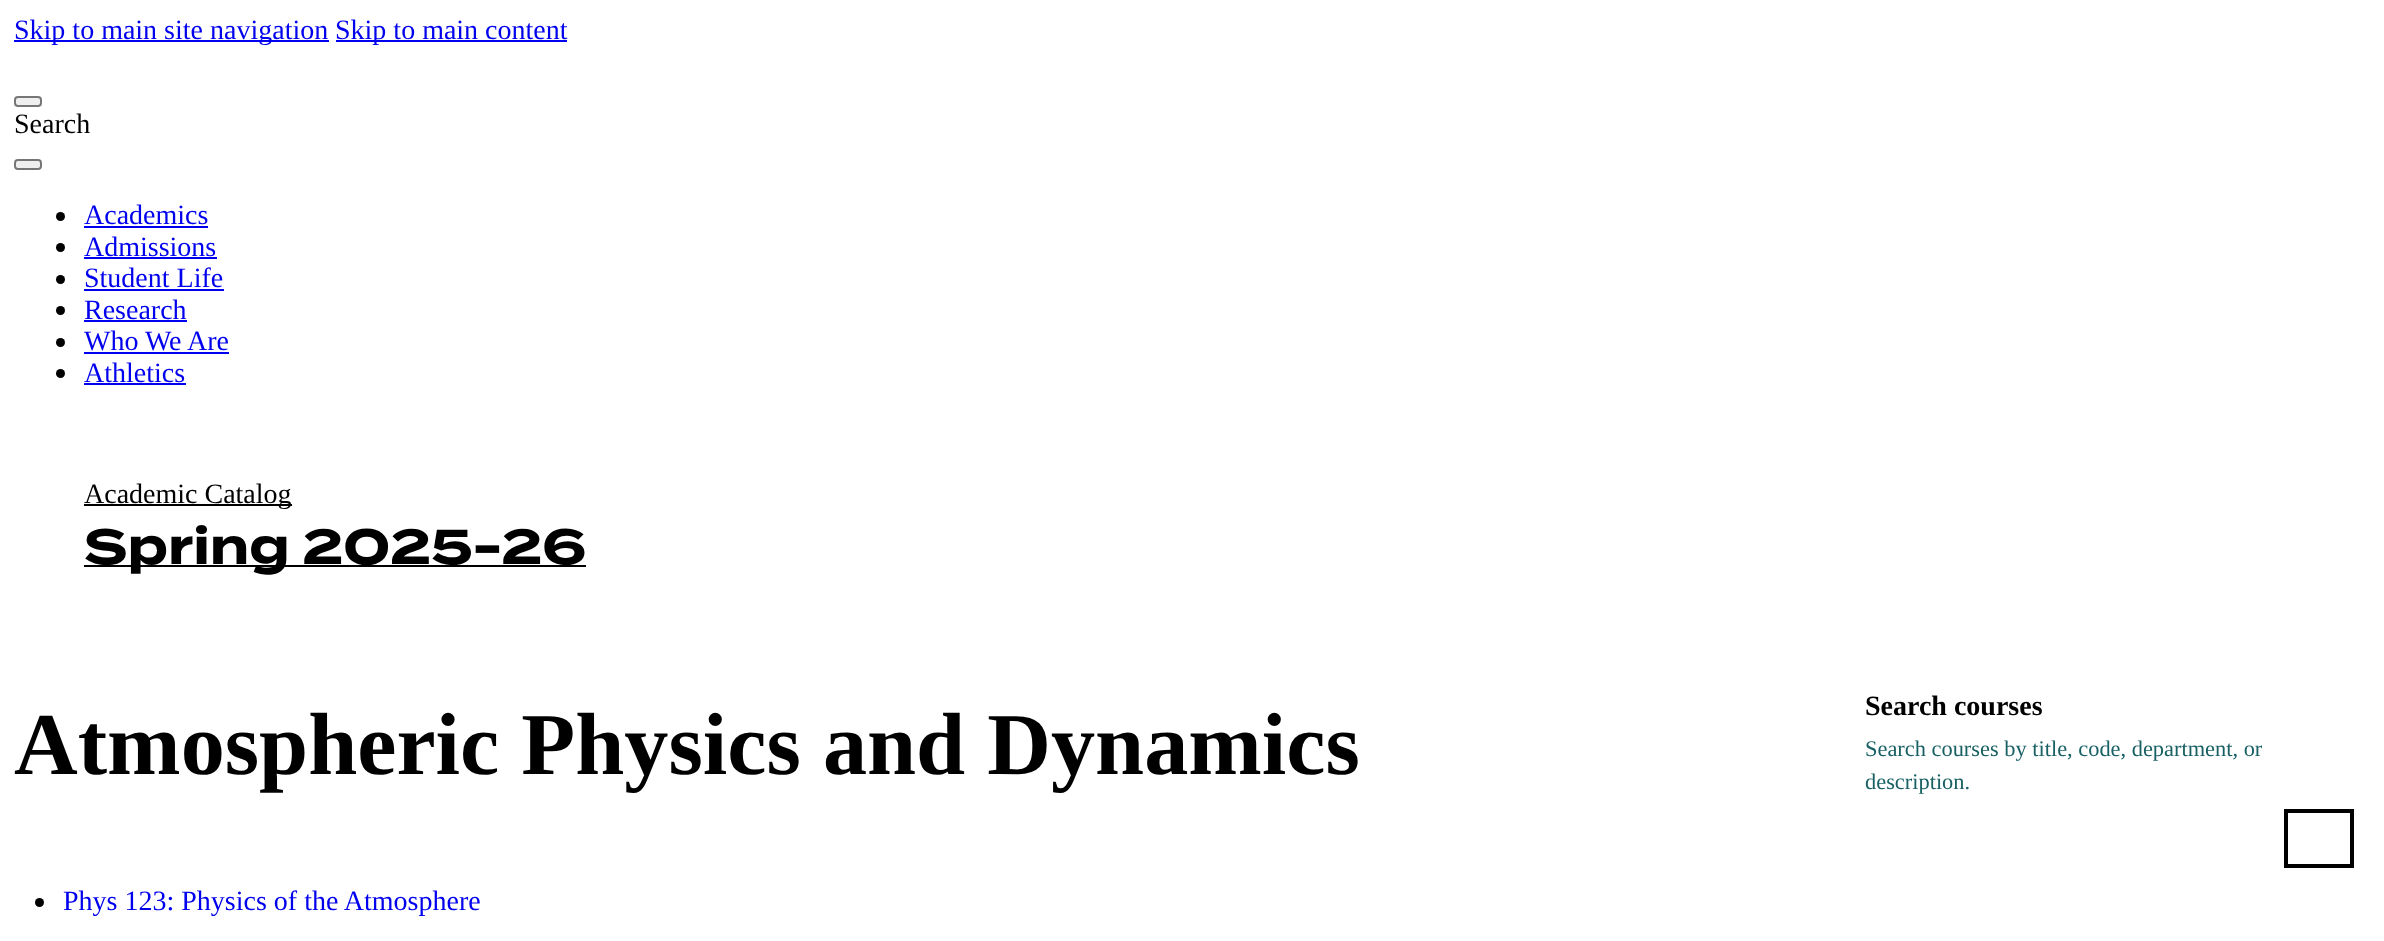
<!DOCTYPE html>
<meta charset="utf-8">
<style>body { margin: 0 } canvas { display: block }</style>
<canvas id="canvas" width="2384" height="941"></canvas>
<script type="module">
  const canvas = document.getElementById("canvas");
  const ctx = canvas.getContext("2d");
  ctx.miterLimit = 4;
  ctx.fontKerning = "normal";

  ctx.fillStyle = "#ffffff";
  ctx.fillRect(0, 0, 2384, 941);
  ctx.fillStyle = "#0000ee";
  ctx.fillRect(14, 40, 315, 2);
  ctx.font = "28px Liberation Serif";
  ctx.fillText("Skip to main site navigation", 14, 39);
  ctx.fillRect(336, 40, 231, 2);
  ctx.fillText("Skip to main content", 335, 39);
  ctx.fillStyle = "#efefef";
  ctx.beginPath();
  ctx.roundRect(15, 97, 26, 9, 3);
  ctx.fill();
  ctx.strokeStyle = "#767676";
  ctx.lineWidth = 2;
  ctx.stroke();
  ctx.fillStyle = "#000000";
  ctx.fillText("Search", 14, 133);
  ctx.fillStyle = "#efefef";
  ctx.beginPath();
  ctx.roundRect(15, 160, 26, 9, 3);
  ctx.fill();
  ctx.stroke();
  ctx.fillStyle = "#000000";
  ctx.beginPath();
  ctx.arc(60.5, 216.5, 4.5, 0, Math.PI * 2);
  ctx.fill();
  ctx.fillStyle = "#0000ee";
  ctx.fillText("Academics", 84, 224);
  ctx.fillRect(84, 226, 124, 2);
  ctx.fillStyle = "#000000";
  ctx.beginPath();
  ctx.arc(60.5, 247.5, 4.5, 0, Math.PI * 2);
  ctx.fill();
  ctx.fillStyle = "#0000ee";
  ctx.fillText("Admissions", 84, 256);
  ctx.fillRect(84, 257, 133, 2);
  ctx.fillStyle = "#000000";
  ctx.beginPath();
  ctx.arc(60.5, 279.5, 4.5, 0, Math.PI * 2);
  ctx.fill();
  ctx.fillStyle = "#0000ee";
  ctx.fillText("Student Life", 84, 287);
  ctx.fillRect(84, 289, 140, 2);
  ctx.fillStyle = "#000000";
  ctx.beginPath();
  ctx.arc(60.5, 310.5, 4.5, 0, Math.PI * 2);
  ctx.fill();
  ctx.fillStyle = "#0000ee";
  ctx.fillText("Research", 84, 319);
  ctx.fillRect(84, 320, 103, 2);
  ctx.fillStyle = "#000000";
  ctx.beginPath();
  ctx.arc(60.5, 342.5, 4.5, 0, Math.PI * 2);
  ctx.fill();
  ctx.fillStyle = "#0000ee";
  ctx.fillText("Who We Are", 84, 350);
  ctx.fillRect(84, 352, 145, 2);
  ctx.fillStyle = "#000000";
  ctx.beginPath();
  ctx.arc(60.5, 373.5, 4.5, 0, Math.PI * 2);
  ctx.fill();
  ctx.fillStyle = "#0000ee";
  ctx.fillText("Athletics", 84, 382);
  ctx.fillRect(84, 383, 102, 2);
  ctx.fillStyle = "#000000";
  ctx.fillRect(84, 504, 208, 2);
  ctx.fillText("Academic Catalog", 84, 503);
  ctx.fillRect(84, 565, 502, 2);
  ctx.font = "bold 49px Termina";
  ctx.fillText("Spring 2025-26", 84, 564);
  ctx.font = "bold 88.25px Liberation Serif";
  ctx.fillText("Atmospheric Physics and Dynamics", 14, 774);
  ctx.beginPath();
  ctx.arc(39.5, 902.5, 4.5, 0, Math.PI * 2);
  ctx.fill();
  ctx.font = "28px Liberation Serif";
  ctx.fillStyle = "#0000ee";
  ctx.fillText("Phys 123: Physics of the Atmosphere", 63, 910);
  ctx.font = "bold 28px Liberation Serif";
  ctx.fillStyle = "#000000";
  ctx.fillText("Search courses", 1865, 715);
  ctx.font = "22.4px Liberation Serif";
  ctx.fillStyle = "#186063";
  ctx.fillText("Search courses by title, code, department, or", 1865, 756);
  ctx.fillText("description.", 1865, 789);
  ctx.strokeStyle = "#000000";
  ctx.lineWidth = 4;
  ctx.strokeRect(2286, 811, 66, 55);
</script>
